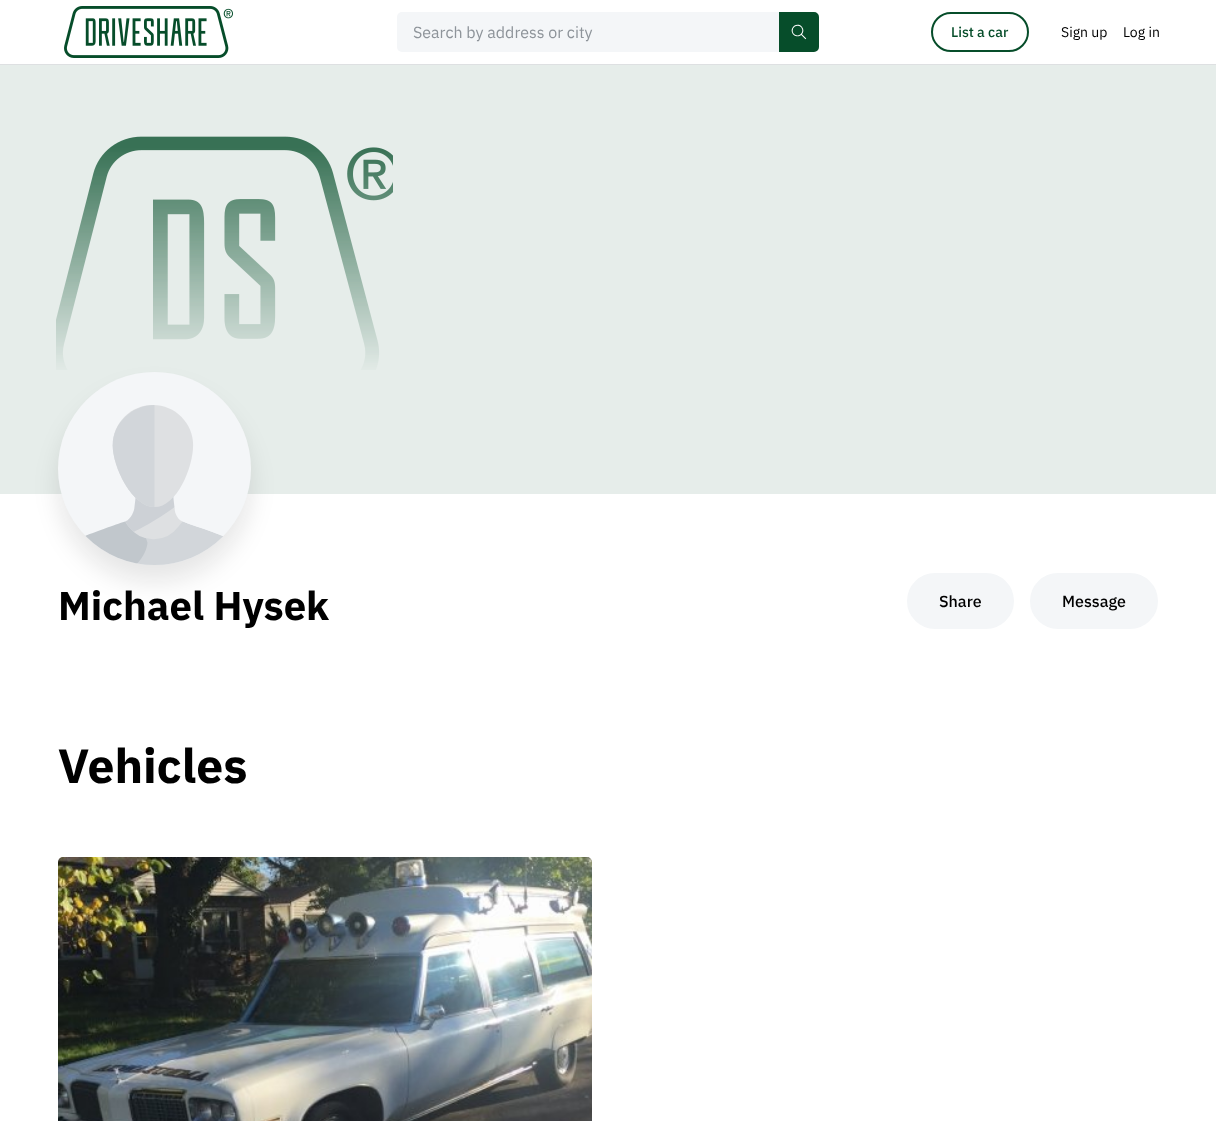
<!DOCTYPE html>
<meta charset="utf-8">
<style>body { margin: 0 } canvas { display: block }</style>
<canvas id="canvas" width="1216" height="1121"></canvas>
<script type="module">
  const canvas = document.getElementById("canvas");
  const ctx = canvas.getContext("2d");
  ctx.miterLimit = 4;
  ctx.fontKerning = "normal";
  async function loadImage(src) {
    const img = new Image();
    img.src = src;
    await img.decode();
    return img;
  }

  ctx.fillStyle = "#ffffff";
  ctx.fillRect(0, 0, 1216, 1121);
  ctx.fillStyle = "#dee0e2";
  ctx.fillRect(0, 64, 1216, 1);
  ctx.drawImage(await loadImage("img1.png"), 64, 6, 169, 52);
  ctx.fillStyle = "#f4f6f8";
  ctx.beginPath();
  ctx.roundRect(397, 12, 422, 40, 5);
  ctx.fill();
  ctx.font = "16px IBM Plex Sans";
  ctx.fillStyle = "#8e949a";
  ctx.fillText("Search by address or city", 413, 38);
  ctx.fillStyle = "#064d2a";
  ctx.beginPath();
  ctx.roundRect(780, 13, 38, 38, [0, 4, 4, 0]);
  ctx.fill();
  ctx.strokeStyle = "#064d2a";
  ctx.lineWidth = 2;
  ctx.stroke();
  ctx.drawImage(await loadImage("img2.png"), 791, 24, 16, 16);
  ctx.beginPath();
  ctx.roundRect(932, 13, 96, 38, 19);
  ctx.stroke();
  ctx.font = "500 14px IBM Plex Sans";
  ctx.fillText("List a car", 951, 37);
  ctx.font = "14px IBM Plex Sans";
  ctx.fillStyle = "#000000";
  ctx.fillText("Sign up", 1061, 37);
  ctx.fillText("Log in", 1123, 37);
  ctx.fillStyle = "#e6edea";
  ctx.fillRect(0, 65, 1216, 429);
  ctx.drawImage(await loadImage("img3.png"), 56, 136, 337, 234);
  ctx.fillStyle = "rgba(9, 10, 11, 0.1)";
  ctx.filter = "blur(12.5px)";
  ctx.beginPath();
  ctx.roundRect(58, 389, 193, 193, 96.5);
  ctx.fill();
  ctx.filter = "none";
  ctx.fillStyle = "#f4f6f8";
  ctx.beginPath();
  ctx.arc(154.5, 468.5, 96.5, 0, Math.PI * 2);
  ctx.fill();
  ctx.drawImage(await loadImage("img4.png"), 85, 405, 138, 160);
  ctx.font = "bold 40px IBM Plex Sans";
  ctx.fillStyle = "#000000";
  ctx.fillText("Michael Hysek", 58, 620);
  ctx.fillStyle = "#f4f6f8";
  ctx.beginPath();
  ctx.roundRect(908, 574, 105, 54, 27);
  ctx.fill();
  ctx.strokeStyle = "#f4f6f8";
  ctx.stroke();
  ctx.font = "500 16px IBM Plex Sans";
  ctx.fillStyle = "#000000";
  ctx.fillText("Share", 939, 607);
  ctx.fillStyle = "#f4f6f8";
  ctx.beginPath();
  ctx.roundRect(1031, 574, 126, 54, 27);
  ctx.fill();
  ctx.stroke();
  ctx.fillStyle = "#000000";
  ctx.fillText("Message", 1062, 607);
  ctx.font = "bold 48px IBM Plex Sans";
  ctx.fillText("Vehicles", 58, 783);
  ctx.drawImage(await loadImage("img5.png"), 58, 857, 534, 264);
</script>
